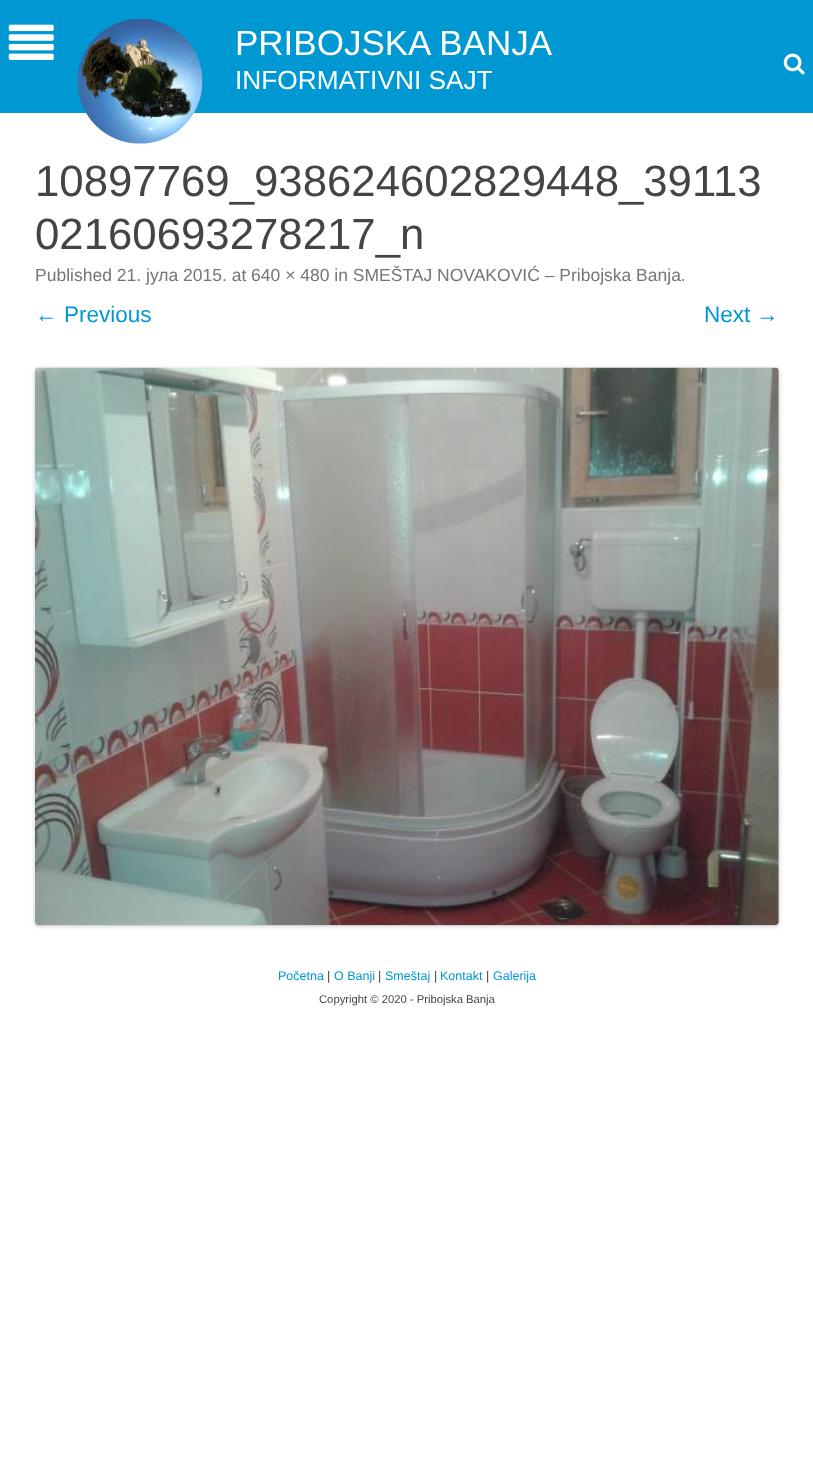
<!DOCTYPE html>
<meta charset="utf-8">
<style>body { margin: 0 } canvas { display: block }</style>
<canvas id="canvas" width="813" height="1464"></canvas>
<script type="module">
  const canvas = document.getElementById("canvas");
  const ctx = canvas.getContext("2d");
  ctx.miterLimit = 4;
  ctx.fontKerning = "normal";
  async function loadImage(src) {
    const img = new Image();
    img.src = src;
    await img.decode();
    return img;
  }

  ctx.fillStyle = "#ffffff";
  ctx.fillRect(0, 0, 813, 1464);
  ctx.fillStyle = "#0098d3";
  ctx.fillRect(0, 0, 813, 113);
  ctx.drawImage(await loadImage("img1.png"), 8, 24, 46, 36);
  ctx.drawImage(await loadImage("img2.png"), 77, 19, 126, 125);
  ctx.font = "35px Arimo";
  ctx.fillStyle = "#ffffff";
  ctx.fillText("PRIBOJSKA BANJA", 235, 55);
  ctx.font = "26.25px Arimo";
  ctx.fillText("INFORMATIVNI SAJT", 235, 89);
  ctx.drawImage(await loadImage("img3.png"), 783, 53, 22, 22);
  ctx.fillStyle = "#ededed";
  ctx.fillRect(35, 925, 744, 1);
  ctx.font = "43.75px Arimo";
  ctx.fillStyle = "#444444";
  ctx.fillText("10897769_938624602829448_39113", 35, 196);
  ctx.fillText("02160693278217_n", 35, 249);
  ctx.font = "17.5px Arimo";
  ctx.fillStyle = "#757575";
  ctx.fillText("Published 21.", 35, 281);
  ctx.font = "17.5px Liberation Sans";
  ctx.fillText("јула", 146, 281);
  ctx.font = "17.5px Arimo";
  ctx.fillText("2015. at 640 × 480 in SMEŠTAJ NOVAKOVIĆ – Pribojska Banja.", 183, 281);
  ctx.font = "22.5px Liberation Sans";
  ctx.fillStyle = "#0098d3";
  ctx.fillText("←", 35, 322);
  ctx.font = "22.5px Arimo";
  ctx.fillText("Previous", 64, 322);
  ctx.fillText("Next", 704, 322);
  ctx.font = "22.5px Liberation Sans";
  ctx.fillText("→", 756, 322);
  ctx.fillStyle = "rgba(0, 0, 0, 0.2)";
  ctx.filter = "blur(2.5px)";
  ctx.beginPath();
  ctx.roundRect(35, 369, 744, 557, 4);
  ctx.fill();
  ctx.filter = "none";
  ctx.drawImage(await loadImage("img4.png"), 35, 367, 744, 558);
  ctx.font = "12.5px Arimo";
  ctx.fillStyle = "#0098d3";
  ctx.fillText("Početna", 278, 980);
  ctx.fillStyle = "#444444";
  ctx.fillText("|", 327, 980);
  ctx.fillStyle = "#0098d3";
  ctx.fillText("O Banji", 334, 980);
  ctx.fillStyle = "#444444";
  ctx.fillText("|", 378, 980);
  ctx.fillStyle = "#0098d3";
  ctx.fillText("Smeštaj", 385, 980);
  ctx.fillStyle = "#444444";
  ctx.fillText("|", 434, 980);
  ctx.fillStyle = "#0098d3";
  ctx.fillText("Kontakt", 440, 980);
  ctx.fillStyle = "#444444";
  ctx.fillText("|", 486, 980);
  ctx.fillStyle = "#0098d3";
  ctx.fillText("Galerija", 493, 980);
  ctx.font = "11.25px Arimo";
  ctx.fillStyle = "#444444";
  ctx.fillText("Copyright © 2020 - Pribojska Banja", 319, 1003);
</script>
